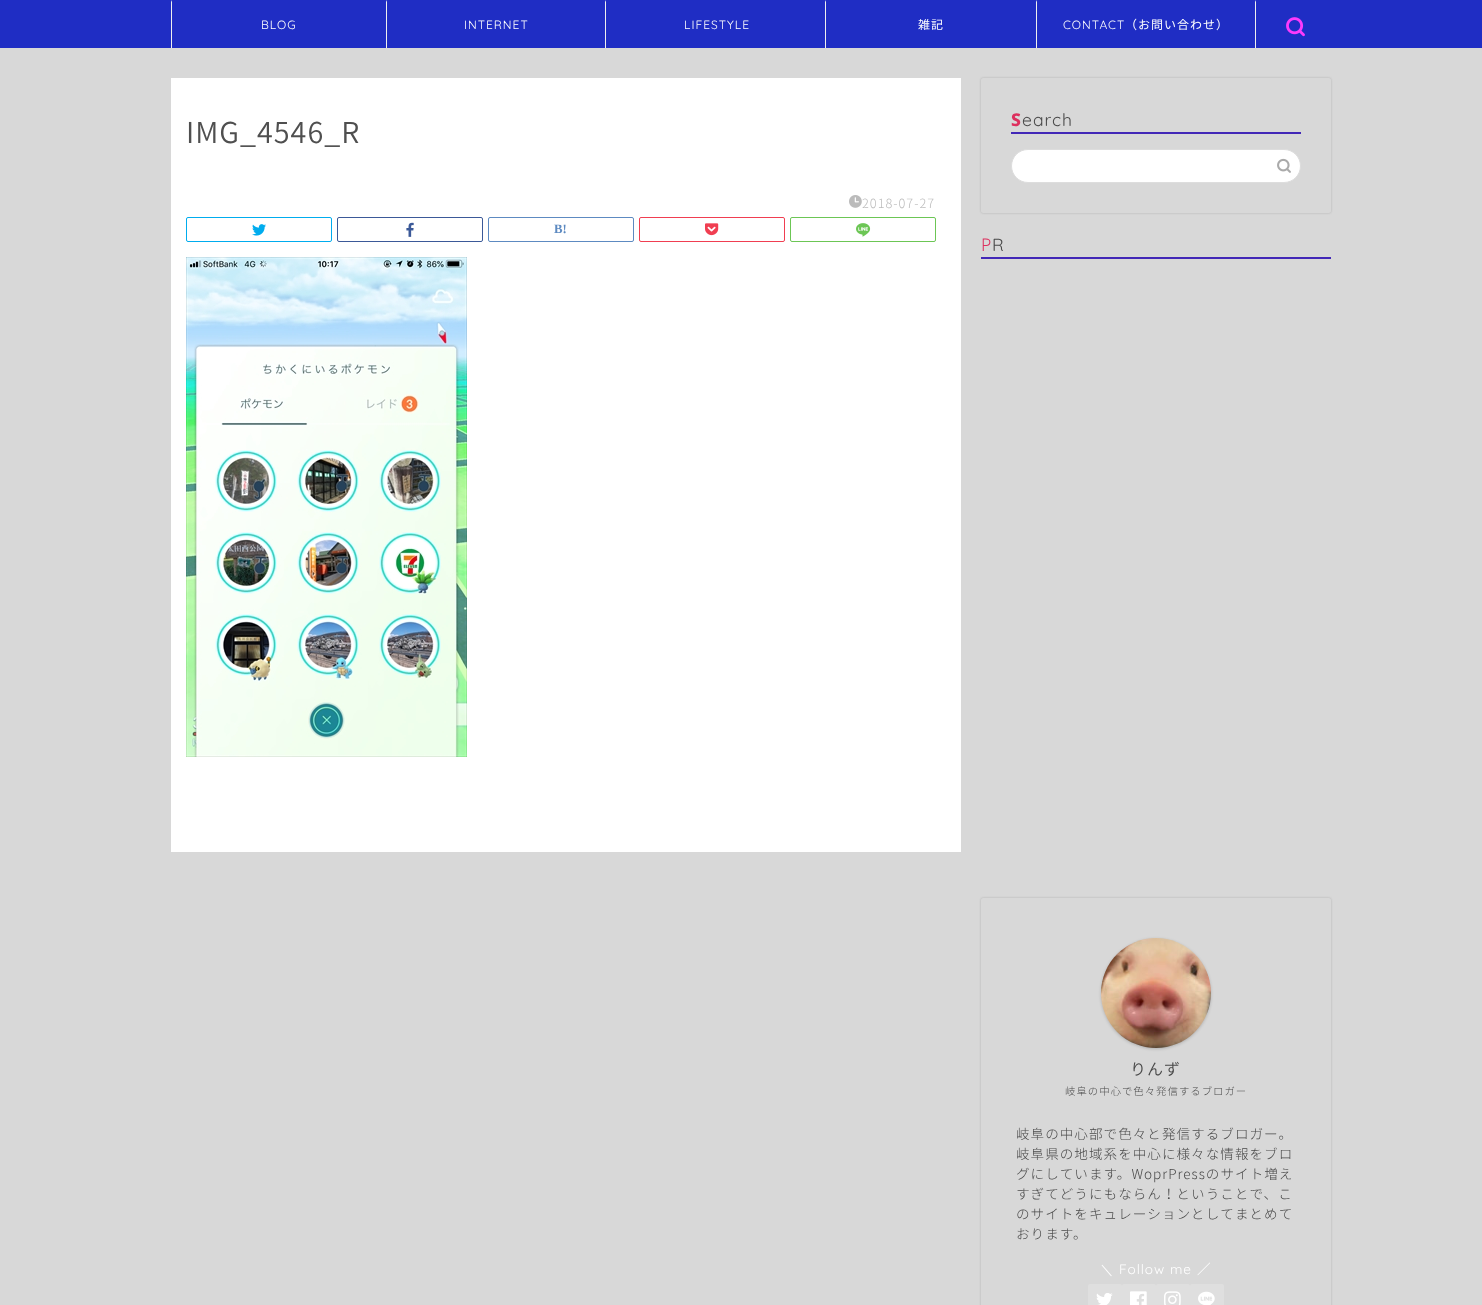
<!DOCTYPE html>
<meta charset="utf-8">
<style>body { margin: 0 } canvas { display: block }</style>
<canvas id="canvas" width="1482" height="1305"></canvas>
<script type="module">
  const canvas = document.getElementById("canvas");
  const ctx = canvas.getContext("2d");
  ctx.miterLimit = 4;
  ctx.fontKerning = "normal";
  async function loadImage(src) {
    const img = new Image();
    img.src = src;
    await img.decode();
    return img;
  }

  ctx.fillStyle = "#d8d8d8";
  ctx.fillRect(0, 0, 1482, 1305);
  ctx.fillStyle = "#1f2dc4";
  ctx.fillRect(0, 0, 1482, 48);
  ctx.fillStyle = "#efefef";
  ctx.beginPath();
  ctx.moveTo(171, 48);
  ctx.lineTo(171, 0);
  ctx.lineTo(172, 2);
  ctx.lineTo(172, 48);
  ctx.closePath();
  ctx.fill();
  ctx.letterSpacing = "1px";
  ctx.font = "300 12px Quicksand";
  ctx.fillStyle = "#ffffff";
  ctx.fillText("BLOG", 261, 29);
  ctx.fillStyle = "#efefef";
  ctx.beginPath();
  ctx.moveTo(386, 48);
  ctx.lineTo(386, 0);
  ctx.lineTo(387, 2);
  ctx.lineTo(387, 48);
  ctx.closePath();
  ctx.fill();
  ctx.fillStyle = "#ffffff";
  ctx.fillText("INTERNET", 464, 29);
  ctx.fillStyle = "#efefef";
  ctx.beginPath();
  ctx.moveTo(605, 48);
  ctx.lineTo(605, 0);
  ctx.lineTo(606, 2);
  ctx.lineTo(606, 48);
  ctx.closePath();
  ctx.fill();
  ctx.fillStyle = "#ffffff";
  ctx.fillText("LIFESTYLE", 684, 29);
  ctx.fillStyle = "#efefef";
  ctx.beginPath();
  ctx.moveTo(825, 48);
  ctx.lineTo(825, 0);
  ctx.lineTo(826, 2);
  ctx.lineTo(826, 48);
  ctx.closePath();
  ctx.fill();
  ctx.font = "12px Noto Sans JP";
  ctx.fillStyle = "#ffffff";
  ctx.fillText("雑記", 918, 29);
  ctx.fillStyle = "#efefef";
  ctx.beginPath();
  ctx.moveTo(1256, 0);
  ctx.lineTo(1256, 48);
  ctx.lineTo(1255, 48);
  ctx.lineTo(1255, 2);
  ctx.closePath();
  ctx.fill();
  ctx.beginPath();
  ctx.moveTo(1036, 48);
  ctx.lineTo(1036, 0);
  ctx.lineTo(1037, 2);
  ctx.lineTo(1037, 48);
  ctx.closePath();
  ctx.fill();
  ctx.font = "300 12px Quicksand";
  ctx.fillStyle = "#ffffff";
  ctx.fillText("CONTACT", 1063, 29);
  ctx.font = "12px Noto Sans JP";
  ctx.fillText("（お問い合わせ）", 1125, 29);
  ctx.drawImage(await loadImage("img1.png"), 1286, 17, 19, 20);
  ctx.fillRect(171, 78, 790, 774);
  ctx.font = "300 28.75px Noto Sans JP";
  ctx.fillStyle = "#4f4f4f";
  ctx.fillText("IMG_4546_R", 186, 143);
  ctx.drawImage(await loadImage("img2.png"), 849, 195, 13, 13);
  ctx.font = "300 12.75px 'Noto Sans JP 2'";
  ctx.fillStyle = "#bbbbbb";
  ctx.fillText("2018-07-27", 862, 208);
  ctx.beginPath();
  ctx.roundRect(186.5, 217.5, 145, 24, 1.5);
  ctx.strokeStyle = "#00acee";
  ctx.stroke();
  ctx.drawImage(await loadImage("img3.png"), 252, 224, 14, 12);
  ctx.beginPath();
  ctx.roundRect(337.5, 217.5, 145, 24, 1.5);
  ctx.strokeStyle = "#3b5998";
  ctx.stroke();
  ctx.drawImage(await loadImage("img4.png"), 406, 222, 8, 15);
  ctx.beginPath();
  ctx.roundRect(488.5, 217.5, 145, 24, 1.5);
  ctx.strokeStyle = "#5d8ac1";
  ctx.stroke();
  ctx.letterSpacing = "0px";
  ctx.font = "bold 12.75px Liberation Serif";
  ctx.fillStyle = "#5d8ac1";
  ctx.fillText("B!", 554, 233);
  ctx.beginPath();
  ctx.roundRect(639.5, 217.5, 145, 24, 1.5);
  ctx.strokeStyle = "#f03e51";
  ctx.stroke();
  ctx.drawImage(await loadImage("img5.png"), 705, 223, 14, 13);
  ctx.beginPath();
  ctx.roundRect(790.5, 217.5, 145, 24, 1.5);
  ctx.strokeStyle = "#6cc655";
  ctx.stroke();
  ctx.drawImage(await loadImage("img6.png"), 856, 223, 15, 14);
  ctx.drawImage(await loadImage("img7.png"), 186, 257, 281, 500);
  ctx.save();
  ctx.beginPath();
  ctx.moveTo(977, 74);
  ctx.lineTo(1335, 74);
  ctx.lineTo(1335, 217);
  ctx.lineTo(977, 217);
  ctx.closePath();
  ctx.moveTo(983, 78);
  ctx.lineTo(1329, 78);
  ctx.bezierCurveTo(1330, 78, 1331, 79, 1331, 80);
  ctx.lineTo(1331, 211);
  ctx.bezierCurveTo(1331, 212, 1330, 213, 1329, 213);
  ctx.lineTo(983, 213);
  ctx.bezierCurveTo(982, 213, 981, 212, 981, 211);
  ctx.lineTo(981, 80);
  ctx.bezierCurveTo(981, 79, 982, 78, 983, 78);
  ctx.closePath();
  ctx.clip("evenodd");
  ctx.fillStyle = "rgba(0, 0, 0, 0.18)";
  ctx.filter = "blur(1px)";
  ctx.beginPath();
  ctx.roundRect(981, 78, 350, 135, 2);
  ctx.fill();
  ctx.filter = "none";
  ctx.restore();
  ctx.fillStyle = "#4228b7";
  ctx.fillRect(1011, 132, 290, 2);
  ctx.letterSpacing = "1px";
  ctx.font = "800 17.5px Noto Sans";
  ctx.fillStyle = "#dd305e";
  ctx.fillText("S", 1011, 126);
  ctx.font = "300 17.5px Quicksand";
  ctx.fillStyle = "#494949";
  ctx.fillText("earch", 1022, 126);
  ctx.fillStyle = "#ffffff";
  ctx.beginPath();
  ctx.roundRect(1011.5, 149.5, 289, 33, 16.5);
  ctx.fill();
  ctx.strokeStyle = "#dddddd";
  ctx.stroke();
  ctx.drawImage(await loadImage("img8.png"), 1277, 158, 14, 15);
  ctx.fillStyle = "#4228b7";
  ctx.fillRect(981, 257, 350, 2);
  ctx.font = "300 17.5px Noto Sans";
  ctx.fillStyle = "#dd305e";
  ctx.fillText("P", 981, 251);
  ctx.font = "300 17.5px Quicksand";
  ctx.fillStyle = "#494949";
  ctx.fillText("R", 992, 251);
  ctx.save();
  ctx.beginPath();
  ctx.moveTo(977, 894);
  ctx.lineTo(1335, 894);
  ctx.lineTo(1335, 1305);
  ctx.lineTo(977, 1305);
  ctx.closePath();
  ctx.moveTo(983, 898);
  ctx.lineTo(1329, 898);
  ctx.bezierCurveTo(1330, 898, 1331, 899, 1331, 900);
  ctx.lineTo(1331, 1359);
  ctx.bezierCurveTo(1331, 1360, 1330, 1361, 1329, 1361);
  ctx.lineTo(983, 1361);
  ctx.bezierCurveTo(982, 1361, 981, 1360, 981, 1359);
  ctx.lineTo(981, 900);
  ctx.bezierCurveTo(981, 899, 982, 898, 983, 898);
  ctx.closePath();
  ctx.clip("evenodd");
  ctx.fillStyle = "rgba(0, 0, 0, 0.18)";
  ctx.filter = "blur(1px)";
  ctx.beginPath();
  ctx.roundRect(981, 898, 350, 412, 2);
  ctx.fill();
  ctx.filter = "none";
  ctx.restore();
  ctx.fillStyle = "rgba(0, 0, 0, 0.18)";
  ctx.filter = "blur(1.5px)";
  ctx.beginPath();
  ctx.roundRect(1101, 939, 110, 110, 55);
  ctx.fill();
  ctx.filter = "none";
  ctx.drawImage(await loadImage("img9.png"), 1101, 938, 110, 110);
  ctx.font = "300 16px Noto Sans JP";
  ctx.fillStyle = "#494949";
  ctx.fillText("りんず", 1130, 1075);
  ctx.font = "300 10.4px 'Noto Sans JP 2'";
  ctx.fillText("岐阜の中心で色々発信するブロガー", 1065, 1095);
  ctx.font = "300 13.6px 'Noto Sans JP 2'";
  ctx.fillText("岐阜の中心部で色々と発信するブロガー。", 1016, 1139);
  ctx.fillText("岐阜県の地域系を中心に様々な情報をブロ", 1016, 1159);
  ctx.fillText("グにしています。WoprPressのサイト増え", 1016, 1179);
  ctx.fillText("すぎてどうにもならん！ということで、こ", 1016, 1199);
  ctx.fillText("のサイトをキュレーションとしてまとめて", 1016, 1219);
  ctx.fillText("おります。", 1016, 1239);
  ctx.font = "500 13.6px WenQuanYi Zen Hei";
  ctx.fillStyle = "#ffffff";
  ctx.fillText("＼", 1100, 1274);
  ctx.font = "300 13.6px Quicksand";
  ctx.fillText("Follow me", 1119, 1274);
  ctx.font = "13.6px Noto Sans JP";
  ctx.fillText("／", 1197, 1274);
  ctx.fillStyle = "#dfdfdf";
  ctx.beginPath();
  ctx.roundRect(1088, 1284, 34, 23, 2);
  ctx.fill();
  ctx.drawImage(await loadImage("img10.png"), 1096, 1293, 17, 12);
  ctx.beginPath();
  ctx.roundRect(1122, 1284, 34, 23, 2);
  ctx.fill();
  ctx.drawImage(await loadImage("img11.png"), 1130, 1291, 17, 14);
  ctx.beginPath();
  ctx.roundRect(1156, 1284, 34, 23, 2);
  ctx.fill();
  ctx.drawImage(await loadImage("img12.png"), 1164, 1291, 17, 14);
  ctx.beginPath();
  ctx.roundRect(1190, 1284, 34, 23, 2);
  ctx.fill();
  ctx.drawImage(await loadImage("img13.png"), 1198, 1291, 17, 14);
</script>
